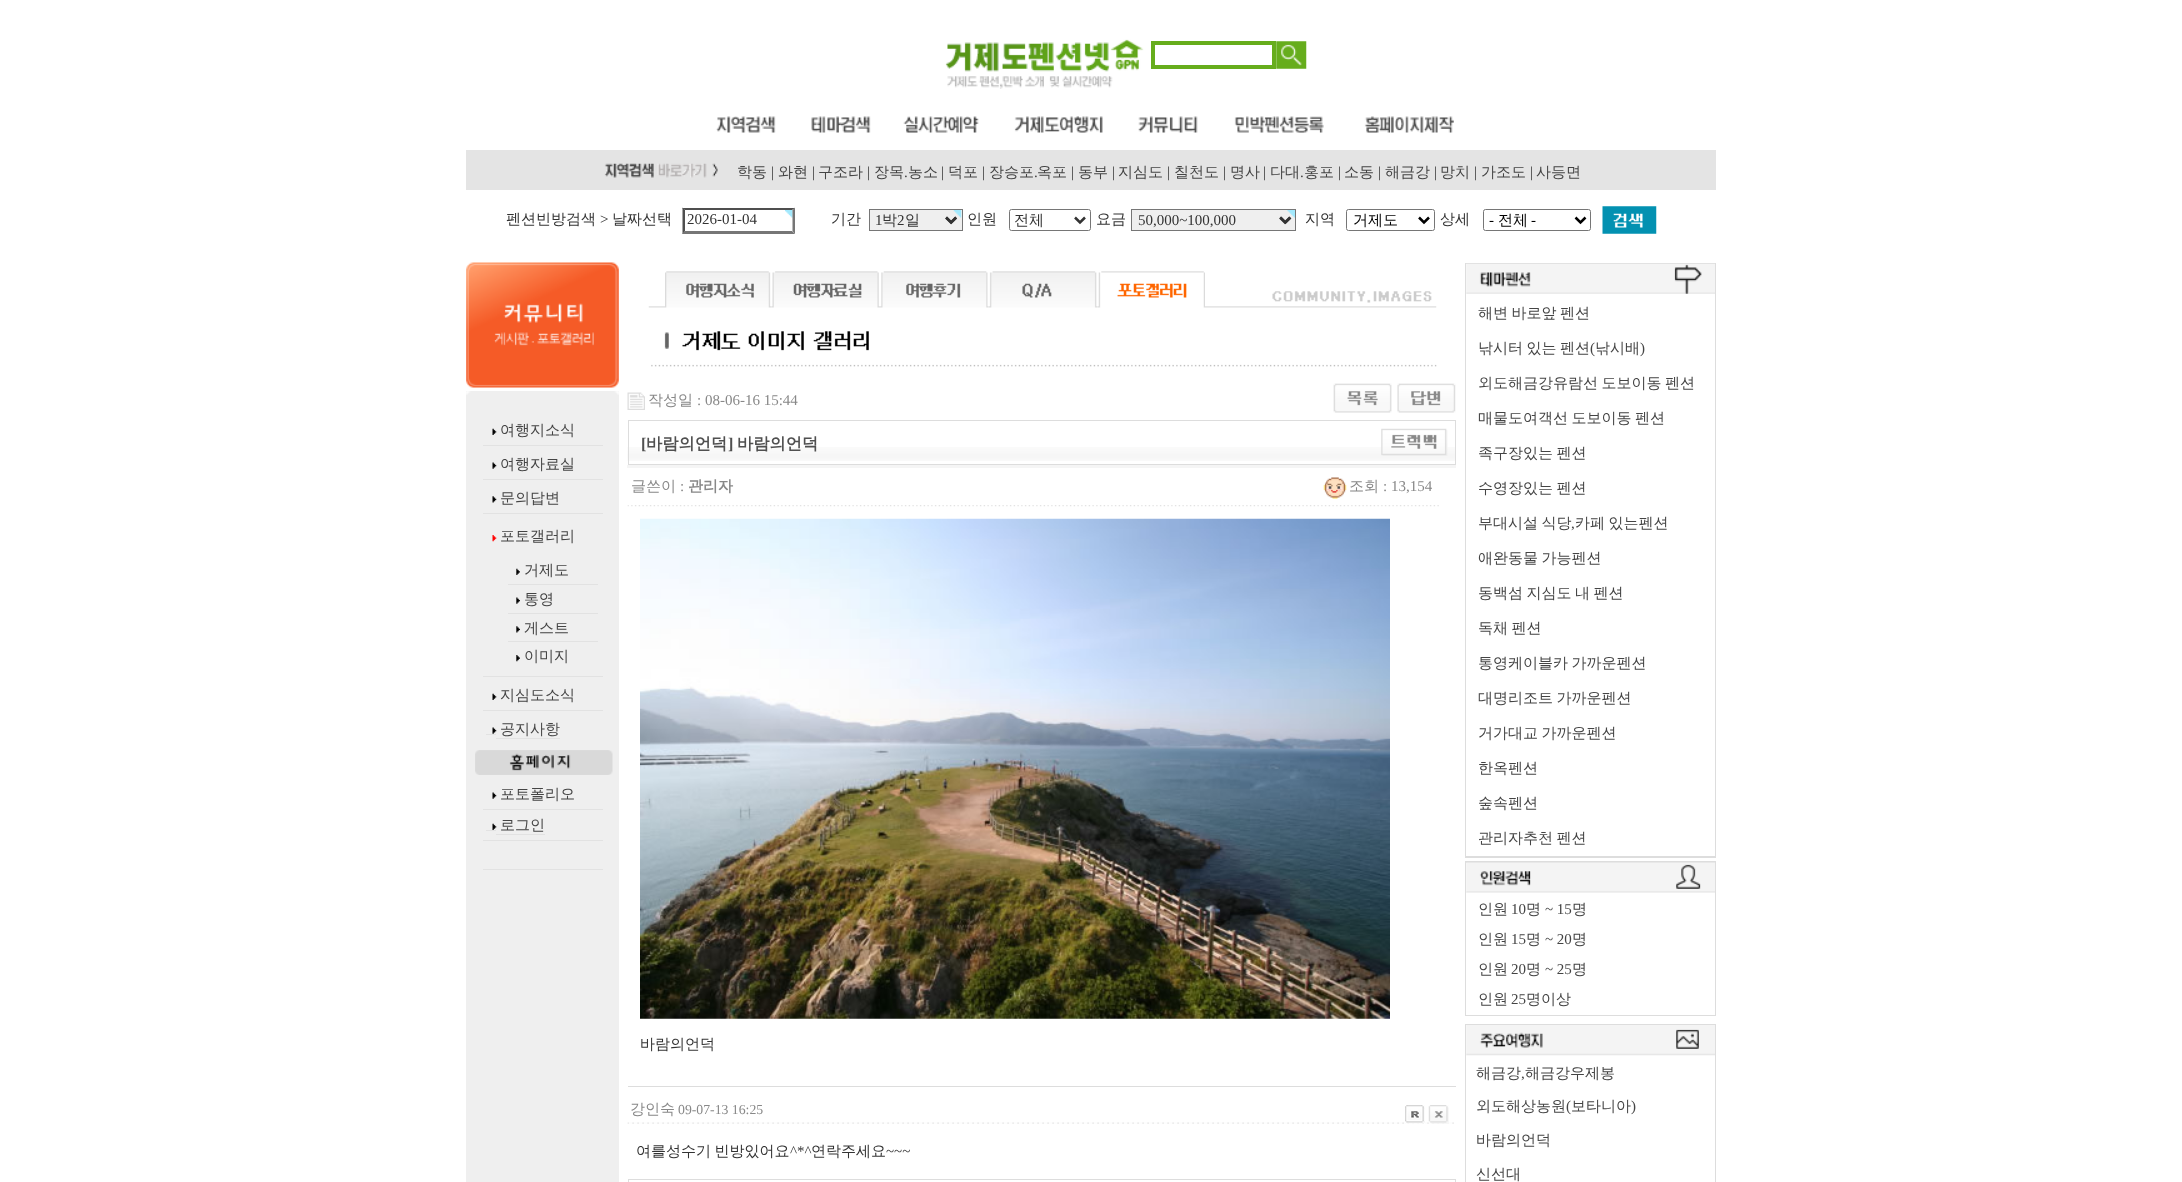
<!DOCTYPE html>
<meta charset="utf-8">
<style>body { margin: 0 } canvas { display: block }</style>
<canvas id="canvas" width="2182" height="1182"></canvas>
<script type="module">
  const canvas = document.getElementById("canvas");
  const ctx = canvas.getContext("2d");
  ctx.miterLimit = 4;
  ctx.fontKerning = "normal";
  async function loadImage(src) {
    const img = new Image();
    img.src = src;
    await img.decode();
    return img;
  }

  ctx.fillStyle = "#ffffff";
  ctx.fillRect(0, 0, 2182, 1182);
  ctx.drawImage(await loadImage("img1.png"), 945, 39, 199, 50);
  ctx.strokeStyle = "#66ad1c";
  ctx.lineWidth = 4;
  ctx.strokeRect(1153, 43, 121, 24);
  ctx.drawImage(await loadImage("img2.png"), 1276, 41, 31, 28);
  ctx.drawImage(await loadImage("img3.png"), 716, 116, 60, 17);
  ctx.drawImage(await loadImage("img4.png"), 811, 116, 60, 17);
  ctx.drawImage(await loadImage("img5.png"), 903, 116, 76, 17);
  ctx.drawImage(await loadImage("img6.png"), 1014, 116, 89, 17);
  ctx.drawImage(await loadImage("img7.png"), 1138, 116, 60, 17);
  ctx.drawImage(await loadImage("img8.png"), 1234, 116, 90, 17);
  ctx.drawImage(await loadImage("img9.png"), 1364, 116, 90, 17);
  ctx.fillStyle = "#e4e4e4";
  ctx.fillRect(466, 150, 1250, 40);
  ctx.drawImage(await loadImage("img10.png"), 604, 163, 114, 15);
  ctx.font = "500 15px WenQuanYi Zen Hei";
  ctx.fillStyle = "#444444";
  ctx.fillText("학동", 737, 177);
  ctx.font = "15px Liberation Serif";
  ctx.fillStyle = "#333333";
  ctx.fillText("|", 771, 177);
  ctx.font = "500 15px WenQuanYi Zen Hei";
  ctx.fillStyle = "#444444";
  ctx.fillText("와현", 778, 177);
  ctx.font = "15px Liberation Serif";
  ctx.fillStyle = "#333333";
  ctx.fillText("|", 812, 177);
  ctx.font = "500 15px WenQuanYi Zen Hei";
  ctx.fillStyle = "#444444";
  ctx.fillText("구조라", 818, 177);
  ctx.font = "15px Liberation Serif";
  ctx.fillStyle = "#333333";
  ctx.fillText("|", 867, 177);
  ctx.font = "500 15px WenQuanYi Zen Hei";
  ctx.fillStyle = "#444444";
  ctx.fillText("장목", 874, 177);
  ctx.font = "15px Liberation Serif";
  ctx.fillText(".", 904, 177);
  ctx.font = "500 15px WenQuanYi Zen Hei";
  ctx.fillText("농소", 908, 177);
  ctx.font = "15px Liberation Serif";
  ctx.fillStyle = "#333333";
  ctx.fillText("|", 941, 177);
  ctx.font = "500 15px WenQuanYi Zen Hei";
  ctx.fillStyle = "#444444";
  ctx.fillText("덕포", 948, 177);
  ctx.font = "15px Liberation Serif";
  ctx.fillStyle = "#333333";
  ctx.fillText("|", 982, 177);
  ctx.font = "500 15px WenQuanYi Zen Hei";
  ctx.fillStyle = "#444444";
  ctx.fillText("장승포", 989, 177);
  ctx.font = "15px Liberation Serif";
  ctx.fillText(".", 1034, 177);
  ctx.font = "500 15px WenQuanYi Zen Hei";
  ctx.fillText("옥포", 1037, 177);
  ctx.font = "15px Liberation Serif";
  ctx.fillStyle = "#333333";
  ctx.fillText("|", 1071, 177);
  ctx.font = "500 15px WenQuanYi Zen Hei";
  ctx.fillStyle = "#444444";
  ctx.fillText("동부", 1078, 177);
  ctx.font = "15px Liberation Serif";
  ctx.fillStyle = "#333333";
  ctx.fillText("|", 1112, 177);
  ctx.font = "500 15px WenQuanYi Zen Hei";
  ctx.fillStyle = "#444444";
  ctx.fillText("지심도", 1118, 177);
  ctx.font = "15px Liberation Serif";
  ctx.fillStyle = "#333333";
  ctx.fillText("|", 1167, 177);
  ctx.font = "500 15px WenQuanYi Zen Hei";
  ctx.fillStyle = "#444444";
  ctx.fillText("칠천도", 1174, 177);
  ctx.font = "15px Liberation Serif";
  ctx.fillStyle = "#333333";
  ctx.fillText("|", 1223, 177);
  ctx.font = "500 15px WenQuanYi Zen Hei";
  ctx.fillStyle = "#444444";
  ctx.fillText("명사", 1230, 177);
  ctx.font = "15px Liberation Serif";
  ctx.fillStyle = "#333333";
  ctx.fillText("|", 1263, 177);
  ctx.font = "500 15px WenQuanYi Zen Hei";
  ctx.fillStyle = "#444444";
  ctx.fillText("다대", 1270, 177);
  ctx.font = "15px Liberation Serif";
  ctx.fillText(".", 1300, 177);
  ctx.font = "500 15px WenQuanYi Zen Hei";
  ctx.fillText("홍포", 1304, 177);
  ctx.font = "15px Liberation Serif";
  ctx.fillStyle = "#333333";
  ctx.fillText("|", 1338, 177);
  ctx.font = "500 15px WenQuanYi Zen Hei";
  ctx.fillStyle = "#444444";
  ctx.fillText("소동", 1344, 177);
  ctx.font = "15px Liberation Serif";
  ctx.fillStyle = "#333333";
  ctx.fillText("|", 1378, 177);
  ctx.font = "500 15px WenQuanYi Zen Hei";
  ctx.fillStyle = "#444444";
  ctx.fillText("해금강", 1385, 177);
  ctx.font = "15px Liberation Serif";
  ctx.fillStyle = "#333333";
  ctx.fillText("|", 1434, 177);
  ctx.font = "500 15px WenQuanYi Zen Hei";
  ctx.fillStyle = "#444444";
  ctx.fillText("망치", 1440, 177);
  ctx.font = "15px Liberation Serif";
  ctx.fillStyle = "#333333";
  ctx.fillText("|", 1474, 177);
  ctx.font = "500 15px WenQuanYi Zen Hei";
  ctx.fillStyle = "#444444";
  ctx.fillText("가조도", 1481, 177);
  ctx.font = "15px Liberation Serif";
  ctx.fillStyle = "#333333";
  ctx.fillText("|", 1530, 177);
  ctx.font = "500 15px WenQuanYi Zen Hei";
  ctx.fillStyle = "#444444";
  ctx.fillText("사등면", 1536, 177);
  ctx.fillStyle = "#333333";
  ctx.fillText("펜션빈방검색", 506, 224);
  ctx.font = "15px Liberation Serif";
  ctx.fillText(">", 600, 224);
  ctx.font = "500 15px WenQuanYi Zen Hei";
  ctx.fillText("날짜선택", 612, 224);
  ctx.drawImage(await loadImage("img11.png"), 785, 210, 8, 8);
  ctx.fillStyle = "#4f4f4f";
  ctx.beginPath();
  ctx.moveTo(682, 208);
  ctx.lineTo(795, 208);
  ctx.lineTo(792, 210);
  ctx.lineTo(685, 210);
  ctx.closePath();
  ctx.fill();
  ctx.fillStyle = "#767676";
  ctx.beginPath();
  ctx.moveTo(795, 207.5);
  ctx.lineTo(795, 234);
  ctx.lineTo(792.5, 231);
  ctx.lineTo(792.5, 210);
  ctx.closePath();
  ctx.fill();
  ctx.beginPath();
  ctx.moveTo(795, 234);
  ctx.lineTo(682, 234);
  ctx.lineTo(685, 231);
  ctx.lineTo(792, 231);
  ctx.closePath();
  ctx.fill();
  ctx.fillStyle = "#4f4f4f";
  ctx.beginPath();
  ctx.moveTo(682.5, 234);
  ctx.lineTo(682.5, 207.5);
  ctx.lineTo(685, 210);
  ctx.lineTo(685, 231);
  ctx.closePath();
  ctx.fill();
  ctx.font = "15px Liberation Serif";
  ctx.fillStyle = "#333333";
  ctx.fillText("2026-01-04", 687, 224);
  ctx.font = "500 15px WenQuanYi Zen Hei";
  ctx.fillText("기간", 831, 224);
  ctx.fillStyle = "#efefef";
  ctx.fillRect(870, 210, 92, 20);
  ctx.drawImage(await loadImage("img12.png"), 945, 210, 17, 15);
  ctx.strokeStyle = "#767676";
  ctx.lineWidth = 1;
  ctx.strokeRect(869.5, 209.5, 93, 21);
  ctx.beginPath();
  ctx.moveTo(946, 217.5);
  ctx.lineTo(951, 222.5);
  ctx.lineTo(956, 217.5);
  ctx.strokeStyle = "#333333";
  ctx.lineWidth = 2.5;
  ctx.stroke();
  ctx.font = "15px Liberation Serif";
  ctx.fillStyle = "#333333";
  ctx.fillText("1", 875, 225);
  ctx.font = "500 15px WenQuanYi Zen Hei";
  ctx.fillText("박", 882, 225);
  ctx.font = "15px Liberation Serif";
  ctx.fillText("2", 897, 225);
  ctx.font = "500 15px WenQuanYi Zen Hei";
  ctx.fillText("일", 905, 225);
  ctx.fillText("인원", 967, 224);
  ctx.beginPath();
  ctx.roundRect(1009.5, 209.5, 81, 21, 2);
  ctx.strokeStyle = "#767676";
  ctx.lineWidth = 1;
  ctx.stroke();
  ctx.beginPath();
  ctx.moveTo(1075, 217.5);
  ctx.lineTo(1080, 222.5);
  ctx.lineTo(1085, 217.5);
  ctx.strokeStyle = "#333333";
  ctx.lineWidth = 2.5;
  ctx.stroke();
  ctx.fillText("전체", 1014, 225);
  ctx.fillText("요금", 1096, 224);
  ctx.fillStyle = "#efefef";
  ctx.fillRect(1132, 210, 163, 20);
  ctx.drawImage(await loadImage("img13.png"), 1279, 210, 16, 15);
  ctx.strokeStyle = "#767676";
  ctx.lineWidth = 1;
  ctx.strokeRect(1131.5, 209.5, 164, 21);
  ctx.beginPath();
  ctx.moveTo(1280.5, 217.5);
  ctx.lineTo(1285.5, 222.5);
  ctx.lineTo(1290.5, 217.5);
  ctx.strokeStyle = "#333333";
  ctx.lineWidth = 2.5;
  ctx.stroke();
  ctx.font = "15px Liberation Serif";
  ctx.fillStyle = "#333333";
  ctx.fillText("50,000~100,000", 1138, 225);
  ctx.font = "500 15px WenQuanYi Zen Hei";
  ctx.fillText("지역", 1305, 224);
  ctx.beginPath();
  ctx.roundRect(1346.5, 209.5, 88, 21, 2);
  ctx.strokeStyle = "#767676";
  ctx.lineWidth = 1;
  ctx.stroke();
  ctx.beginPath();
  ctx.moveTo(1419, 217.5);
  ctx.lineTo(1424, 222.5);
  ctx.lineTo(1429, 217.5);
  ctx.strokeStyle = "#000000";
  ctx.lineWidth = 2.5;
  ctx.stroke();
  ctx.fillStyle = "#000000";
  ctx.fillText("거제도", 1353, 225);
  ctx.fillStyle = "#333333";
  ctx.fillText("상세", 1440, 224);
  ctx.beginPath();
  ctx.roundRect(1483.5, 209.5, 107, 21, 2);
  ctx.strokeStyle = "#767676";
  ctx.lineWidth = 1;
  ctx.stroke();
  ctx.beginPath();
  ctx.moveTo(1575.5, 217.5);
  ctx.lineTo(1580.5, 222.5);
  ctx.lineTo(1585.5, 217.5);
  ctx.strokeStyle = "#000000";
  ctx.lineWidth = 2.5;
  ctx.stroke();
  ctx.font = "15px Liberation Serif";
  ctx.fillStyle = "#000000";
  ctx.fillText("-", 1489, 225);
  ctx.font = "500 15px WenQuanYi Zen Hei";
  ctx.fillText("전체", 1498, 225);
  ctx.font = "15px Liberation Serif";
  ctx.fillText("-", 1531, 225);
  ctx.drawImage(await loadImage("img14.png"), 1602, 206, 55, 28);
  ctx.fillStyle = "#efefef";
  ctx.fillRect(466, 391, 153, 791);
  ctx.drawImage(await loadImage("img15.png"), 466, 262, 153, 126);
  ctx.drawImage(await loadImage("img16.png"), 466, 391, 153, 4);
  ctx.fillStyle = "#e2e2e2";
  ctx.fillRect(483, 445, 120, 1);
  ctx.drawImage(await loadImage("img17.png"), 492, 428, 5, 7);
  ctx.font = "500 15px WenQuanYi Zen Hei";
  ctx.fillStyle = "#444444";
  ctx.fillText("여행지소식", 500, 435);
  ctx.fillStyle = "#e2e2e2";
  ctx.fillRect(483, 479, 120, 1);
  ctx.drawImage(await loadImage("img18.png"), 492, 462, 5, 7);
  ctx.fillStyle = "#444444";
  ctx.fillText("여행자료실", 500, 469);
  ctx.fillStyle = "#e2e2e2";
  ctx.fillRect(483, 513, 120, 1);
  ctx.drawImage(await loadImage("img19.png"), 492, 496, 5, 7);
  ctx.fillStyle = "#444444";
  ctx.fillText("문의답변", 500, 503);
  ctx.drawImage(await loadImage("img20.png"), 492, 535, 5, 7);
  ctx.fillText("포토갤러리", 500, 541);
  ctx.fillStyle = "#e2e2e2";
  ctx.fillRect(483, 676, 120, 1);
  ctx.fillRect(508, 584, 90, 1);
  ctx.drawImage(await loadImage("img21.png"), 516, 568, 4, 7);
  ctx.fillStyle = "#444444";
  ctx.fillText("거제도", 524, 575);
  ctx.fillStyle = "#e2e2e2";
  ctx.fillRect(508, 613, 90, 1);
  ctx.drawImage(await loadImage("img22.png"), 516, 597, 4, 7);
  ctx.fillStyle = "#444444";
  ctx.fillText("통영", 524, 604);
  ctx.fillStyle = "#e2e2e2";
  ctx.fillRect(508, 641, 90, 1);
  ctx.drawImage(await loadImage("img23.png"), 516, 626, 4, 7);
  ctx.fillStyle = "#444444";
  ctx.fillText("게스트", 524, 633);
  ctx.drawImage(await loadImage("img24.png"), 516, 655, 4, 7);
  ctx.fillText("이미지", 524, 661);
  ctx.fillStyle = "#e2e2e2";
  ctx.fillRect(483, 710, 120, 1);
  ctx.drawImage(await loadImage("img17.png"), 492, 693, 5, 7);
  ctx.fillStyle = "#444444";
  ctx.fillText("지심도소식", 500, 700);
  ctx.drawImage(await loadImage("img18.png"), 492, 727, 5, 7);
  ctx.fillText("공지사항", 500, 734);
  ctx.fillStyle = "#e2e2e2";
  ctx.fillRect(486, 734, 10, 1);
  ctx.fillRect(496, 738, 64, 1);
  ctx.drawImage(await loadImage("img25.png"), 475, 750, 138, 25);
  ctx.fillRect(483, 809, 120, 1);
  ctx.drawImage(await loadImage("img18.png"), 492, 792, 5, 7);
  ctx.fillStyle = "#444444";
  ctx.fillText("포토폴리오", 500, 799);
  ctx.fillStyle = "#e2e2e2";
  ctx.fillRect(483, 840, 120, 1);
  ctx.drawImage(await loadImage("img17.png"), 492, 823, 5, 7);
  ctx.fillStyle = "#444444";
  ctx.fillText("로그인", 500, 830);
  ctx.fillStyle = "#e2e2e2";
  ctx.fillRect(486, 830, 10, 1);
  ctx.fillRect(496, 834, 49, 1);
  ctx.fillRect(483, 869, 120, 1);
  ctx.drawImage(await loadImage("img26.png"), 648, 306, 17, 2);
  ctx.drawImage(await loadImage("img27.png"), 665, 271, 107, 37);
  ctx.drawImage(await loadImage("img28.png"), 771, 271, 109, 37);
  ctx.drawImage(await loadImage("img29.png"), 880, 271, 109, 37);
  ctx.drawImage(await loadImage("img30.png"), 989, 271, 109, 37);
  ctx.drawImage(await loadImage("img31.png"), 1097, 271, 108, 37);
  ctx.drawImage(await loadImage("img32.png"), 1205, 291, 232, 17);
  ctx.drawImage(await loadImage("img33.png"), 664, 331, 205, 20);
  ctx.drawImage(await loadImage("img34.png"), 651, 364, 786, 3);
  ctx.drawImage(await loadImage("img35.png"), 627, 392, 18, 18);
  ctx.fillStyle = "#888888";
  ctx.fillText("작성일", 648, 405);
  ctx.font = "15px Liberation Serif";
  ctx.fillText(": 08-06-16 15:44", 697, 405);
  ctx.drawImage(await loadImage("img36.png"), 1333, 383, 59, 30);
  ctx.drawImage(await loadImage("img37.png"), 1397, 383, 59, 30);
  ctx.drawImage(await loadImage("img38.png"), 627, 447, 828, 14);
  ctx.strokeStyle = "#dddddd";
  ctx.lineWidth = 1;
  ctx.strokeRect(628.5, 420.5, 827, 44);
  ctx.font = "bold 16.25px Liberation Serif";
  ctx.fillStyle = "#505050";
  ctx.fillText("[", 641, 449);
  ctx.font = "bold 16.25px WenQuanYi Zen Hei";
  ctx.fillText("바람의언덕", 646, 449);
  ctx.font = "bold 16.25px Liberation Serif";
  ctx.fillText("]", 728, 449);
  ctx.font = "bold 16.25px WenQuanYi Zen Hei";
  ctx.fillText("바람의언덕", 737, 449);
  ctx.drawImage(await loadImage("img39.png"), 1381, 428, 67, 28);
  ctx.fillStyle = "#f5f5f5";
  ctx.fillRect(627, 465, 829, 3);
  ctx.drawImage(await loadImage("img40.png"), 627, 505, 812, 2);
  ctx.font = "500 15px WenQuanYi Zen Hei";
  ctx.fillStyle = "#888888";
  ctx.fillText("글쓴이", 631, 491);
  ctx.font = "15px Liberation Serif";
  ctx.fillText(":", 680, 491);
  ctx.font = "bold 15px WenQuanYi Zen Hei";
  ctx.fillText("관리자", 688, 491);
  ctx.drawImage(await loadImage("img41.png"), 1323, 477, 24, 22);
  ctx.font = "500 15px WenQuanYi Zen Hei";
  ctx.fillText("조회", 1349, 491);
  ctx.font = "15px Liberation Serif";
  ctx.fillText(": 13,154", 1383, 491);
  ctx.drawImage(await loadImage("img42.png"), 640, 518, 750, 501);
  ctx.font = "500 15px WenQuanYi Zen Hei";
  ctx.fillStyle = "#333333";
  ctx.fillText("바람의언덕", 640, 1049);
  ctx.fillStyle = "#dddddd";
  ctx.fillRect(628, 1086, 828, 1);
  ctx.drawImage(await loadImage("img43.png"), 627, 1122, 827, 2);
  ctx.fillStyle = "#888888";
  ctx.fillText("강인숙", 630, 1114);
  ctx.font = "13.75px Liberation Serif";
  ctx.fillText("09-07-13 16:25", 678, 1114);
  ctx.drawImage(await loadImage("img44.png"), 1405, 1105, 20, 19);
  ctx.drawImage(await loadImage("img45.png"), 1428, 1105, 21, 19);
  ctx.wordSpacing = "-1px";
  ctx.font = "500 15px WenQuanYi Zen Hei";
  ctx.fillStyle = "#333333";
  ctx.fillText("여를성수기 빈방있어요", 636, 1156);
  ctx.wordSpacing = "0px";
  ctx.font = "15px Liberation Serif";
  ctx.fillText("^*^", 790, 1156);
  ctx.font = "500 15px WenQuanYi Zen Hei";
  ctx.fillText("연락주세요", 811, 1156);
  ctx.font = "15px Liberation Serif";
  ctx.fillText("~~~", 886, 1156);
  ctx.fillStyle = "#dddddd";
  ctx.fillRect(628, 1179, 828, 3);
  ctx.fillStyle = "#ffffff";
  ctx.fillRect(629, 1180, 826, 2);
  ctx.fillStyle = "#dddddd";
  ctx.fillRect(1465, 263, 251, 595);
  ctx.fillStyle = "#ffffff";
  ctx.fillRect(1466, 264, 249, 592);
  ctx.drawImage(await loadImage("img46.png"), 1466, 263, 249, 31);
  ctx.wordSpacing = "-1px";
  ctx.font = "500 15px WenQuanYi Zen Hei";
  ctx.fillStyle = "#444444";
  ctx.fillText("해변 바로앞 펜션", 1478, 318);
  ctx.fillText("낚시터 있는 펜션", 1478, 353);
  ctx.wordSpacing = "0px";
  ctx.font = "15px Liberation Serif";
  ctx.fillText("(", 1590, 353);
  ctx.font = "500 15px WenQuanYi Zen Hei";
  ctx.fillText("낚시배", 1595, 353);
  ctx.font = "15px Liberation Serif";
  ctx.fillText(")", 1640, 353);
  ctx.wordSpacing = "-1px";
  ctx.font = "500 15px WenQuanYi Zen Hei";
  ctx.fillText("외도해금강유람선 도보이동 펜션", 1478, 388);
  ctx.fillText("매물도여객선 도보이동 펜션", 1478, 423);
  ctx.fillText("족구장있는 펜션", 1478, 458);
  ctx.fillText("수영장있는 펜션", 1478, 493);
  ctx.fillText("부대시설 식당", 1478, 528);
  ctx.wordSpacing = "0px";
  ctx.font = "15px Liberation Serif";
  ctx.fillText(",", 1571, 528);
  ctx.wordSpacing = "-1px";
  ctx.font = "500 15px WenQuanYi Zen Hei";
  ctx.fillText("카페 있는펜션", 1575, 528);
  ctx.fillText("애완동물 가능펜션", 1478, 563);
  ctx.fillText("동백섬 지심도 내 펜션", 1478, 598);
  ctx.fillText("독채 펜션", 1478, 633);
  ctx.fillText("통영케이블카 가까운펜션", 1478, 668);
  ctx.fillText("대명리조트 가까운펜션", 1478, 703);
  ctx.fillText("거가대교 가까운펜션", 1478, 738);
  ctx.wordSpacing = "0px";
  ctx.fillText("한옥펜션", 1478, 773);
  ctx.fillText("숲속펜션", 1478, 808);
  ctx.wordSpacing = "-1px";
  ctx.fillText("관리자추천 펜션", 1478, 843);
  ctx.fillStyle = "#dddddd";
  ctx.fillRect(1465, 861, 251, 155);
  ctx.fillStyle = "#ffffff";
  ctx.fillRect(1466, 863, 249, 152);
  ctx.drawImage(await loadImage("img47.png"), 1466, 862, 249, 31);
  ctx.wordSpacing = "0px";
  ctx.fillStyle = "#444444";
  ctx.fillText("인원", 1478, 914);
  ctx.font = "15px Liberation Serif";
  ctx.fillText("10", 1511, 914);
  ctx.font = "500 15px WenQuanYi Zen Hei";
  ctx.fillText("명", 1526, 914);
  ctx.font = "15px Liberation Serif";
  ctx.fillText("~ 15", 1545, 914);
  ctx.font = "500 15px WenQuanYi Zen Hei";
  ctx.fillText("명", 1572, 914);
  ctx.fillText("인원", 1478, 944);
  ctx.font = "15px Liberation Serif";
  ctx.fillText("15", 1511, 944);
  ctx.font = "500 15px WenQuanYi Zen Hei";
  ctx.fillText("명", 1526, 944);
  ctx.font = "15px Liberation Serif";
  ctx.fillText("~ 20", 1545, 944);
  ctx.font = "500 15px WenQuanYi Zen Hei";
  ctx.fillText("명", 1572, 944);
  ctx.fillText("인원", 1478, 974);
  ctx.font = "15px Liberation Serif";
  ctx.fillText("20", 1511, 974);
  ctx.font = "500 15px WenQuanYi Zen Hei";
  ctx.fillText("명", 1526, 974);
  ctx.font = "15px Liberation Serif";
  ctx.fillText("~ 25", 1545, 974);
  ctx.font = "500 15px WenQuanYi Zen Hei";
  ctx.fillText("명", 1572, 974);
  ctx.fillText("인원", 1478, 1004);
  ctx.font = "15px Liberation Serif";
  ctx.fillText("25", 1511, 1004);
  ctx.font = "500 15px WenQuanYi Zen Hei";
  ctx.fillText("명이상", 1526, 1004);
  ctx.fillStyle = "#dddddd";
  ctx.fillRect(1465, 1024, 251, 158);
  ctx.fillStyle = "#ffffff";
  ctx.fillRect(1466, 1025, 249, 157);
  ctx.drawImage(await loadImage("img48.png"), 1466, 1025, 249, 31);
  ctx.fillStyle = "#444444";
  ctx.fillText("해금강", 1476, 1078);
  ctx.font = "15px Liberation Serif";
  ctx.fillText(",", 1521, 1078);
  ctx.font = "500 15px WenQuanYi Zen Hei";
  ctx.fillText("해금강우제봉", 1525, 1078);
  ctx.fillText("외도해상농원", 1476, 1111);
  ctx.font = "15px Liberation Serif";
  ctx.fillText("(", 1566, 1111);
  ctx.font = "500 15px WenQuanYi Zen Hei";
  ctx.fillText("보타니아", 1571, 1111);
  ctx.font = "15px Liberation Serif";
  ctx.fillText(")", 1631, 1111);
  ctx.font = "500 15px WenQuanYi Zen Hei";
  ctx.fillText("바람의언덕", 1476, 1145);
  ctx.fillText("신선대", 1476, 1179);
</script>
